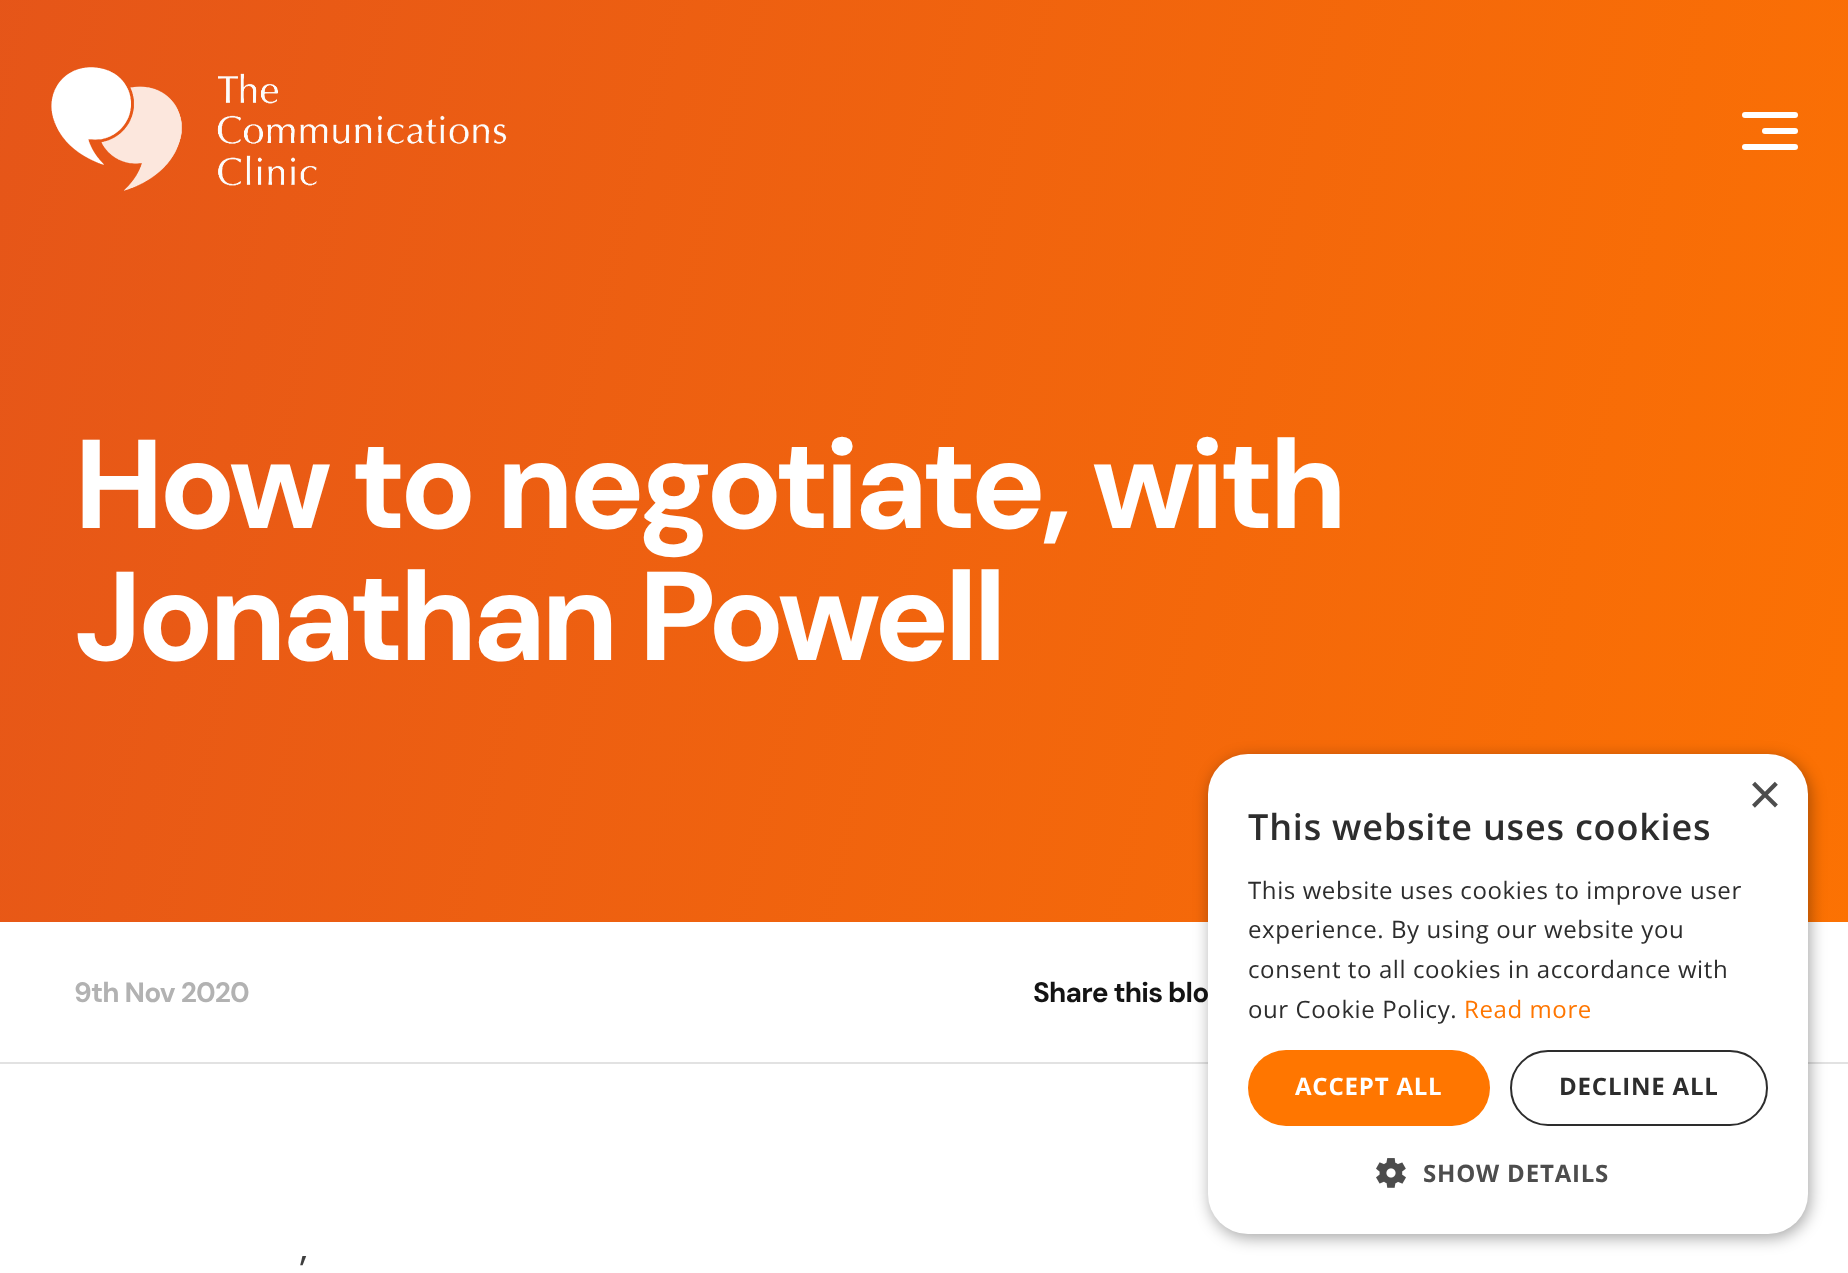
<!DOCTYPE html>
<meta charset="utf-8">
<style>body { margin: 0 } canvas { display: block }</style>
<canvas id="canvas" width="1848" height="1273"></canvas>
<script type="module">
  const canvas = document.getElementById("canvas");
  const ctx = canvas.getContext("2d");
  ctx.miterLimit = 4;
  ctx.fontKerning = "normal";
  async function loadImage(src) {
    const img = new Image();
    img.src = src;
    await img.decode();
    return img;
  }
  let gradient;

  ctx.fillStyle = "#ffffff";
  ctx.fillRect(0, 0, 1848, 1273);
  gradient = ctx.createLinearGradient(-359, 153, 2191, 765);
  gradient.addColorStop(0, "#e2511c");
  gradient.addColorStop(1, "#ff7600");
  ctx.fillStyle = gradient;
  ctx.fillRect(0, 0, 1848, 922);
  ctx.drawImage(await loadImage("img1.png"), 51, 67, 456, 124);
  ctx.fillStyle = "#ffffff";
  ctx.beginPath();
  ctx.roundRect(1742, 112, 56, 6, 3);
  ctx.fill();
  ctx.beginPath();
  ctx.roundRect(1762, 128, 36, 6, 3);
  ctx.fill();
  ctx.beginPath();
  ctx.roundRect(1742, 144, 56, 6, 3);
  ctx.fill();
  ctx.letterSpacing = "-5px";
  ctx.font = "bold 126px DM Sans";
  ctx.fillText("How to negotiate, with", 74, 528);
  ctx.fillText("Jonathan Powell", 74, 660);
  ctx.fillStyle = "#e2e2e2";
  ctx.fillRect(0, 1062, 1848, 2);
  ctx.letterSpacing = "-0.8px";
  ctx.font = "bold 28px DM Sans";
  ctx.fillStyle = "#b2b2b2";
  ctx.fillText("9th Nov 2020", 74, 1002);
  ctx.fillStyle = "#141414";
  ctx.fillText("Share this blo", 1033, 1002);
  ctx.letterSpacing = "-1px";
  ctx.font = "40px DM Sans";
  ctx.fillStyle = "#3e3e3e";
  ctx.fillText("’", 299, 1284);
  ctx.fillStyle = "rgba(0, 0, 0, 0.35)";
  ctx.filter = "blur(8px)";
  ctx.beginPath();
  ctx.roundRect(1210, 758, 600, 480, 40);
  ctx.fill();
  ctx.filter = "none";
  ctx.fillStyle = "#ffffff";
  ctx.beginPath();
  ctx.roundRect(1208, 754, 600, 480, 40);
  ctx.fill();
  ctx.letterSpacing = "0px";
  ctx.font = "58px Liberation Sans";
  ctx.fillStyle = "#4d4d4d";
  ctx.fillText("×", 1748, 814);
  ctx.letterSpacing = "0.8px";
  ctx.font = "600 36px Open Sans";
  ctx.fillStyle = "#2d2d2d";
  ctx.fillText("This website uses cookies", 1248, 840);
  ctx.letterSpacing = "0.6px";
  ctx.font = "24px Open Sans";
  ctx.fillText("This website uses cookies to improve user", 1248, 899);
  ctx.fillText("experience. By using our website you", 1248, 938);
  ctx.fillText("consent to all cookies in accordance with", 1248, 978);
  ctx.fillText("our Cookie Policy.", 1248, 1018);
  ctx.fillStyle = "#ff7600";
  ctx.fillText("Read more", 1464, 1018);
  ctx.beginPath();
  ctx.roundRect(1248, 1050, 242, 76, 38);
  ctx.fill();
  ctx.letterSpacing = "0.8px";
  ctx.font = "bold 24px Open Sans";
  ctx.fillStyle = "#ffffff";
  ctx.fillText("ACCEPT ALL", 1295, 1095);
  ctx.beginPath();
  ctx.roundRect(1511, 1051, 256, 74, 37);
  ctx.strokeStyle = "#2d2d2d";
  ctx.lineWidth = 2;
  ctx.stroke();
  ctx.fillStyle = "#2d2d2d";
  ctx.fillText("DECLINE ALL", 1559, 1095);
  ctx.drawImage(await loadImage("img2.png"), 1376, 1158, 30, 30);
  ctx.fillStyle = "#4d4d4d";
  ctx.fillText("SHOW DETAILS", 1423, 1182);
</script>
